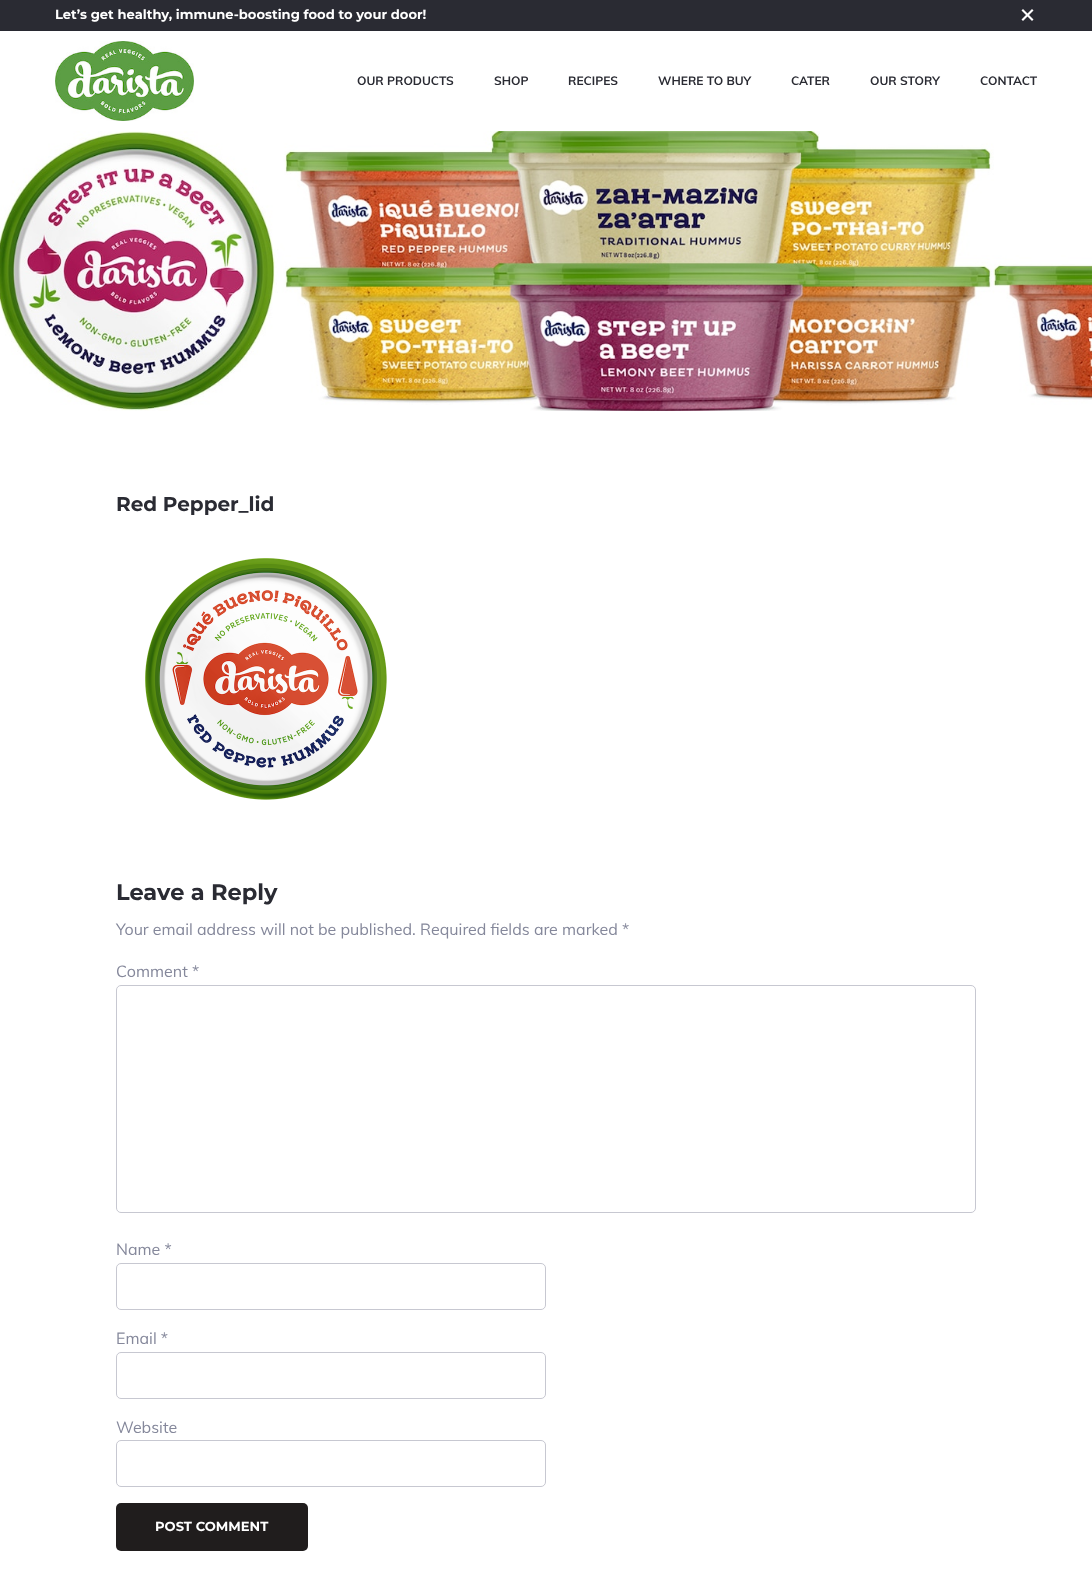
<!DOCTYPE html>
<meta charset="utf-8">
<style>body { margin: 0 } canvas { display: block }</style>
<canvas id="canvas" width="1092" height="1577"></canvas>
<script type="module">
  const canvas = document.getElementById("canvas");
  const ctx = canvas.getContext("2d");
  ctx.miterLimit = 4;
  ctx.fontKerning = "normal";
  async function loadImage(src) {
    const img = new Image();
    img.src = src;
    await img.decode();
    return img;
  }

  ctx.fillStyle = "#ffffff";
  ctx.fillRect(0, 0, 1092, 1577);
  ctx.fillStyle = "#2a2b33";
  ctx.fillRect(0, 0, 1092, 30);
  ctx.fillStyle = "#282931";
  ctx.fillRect(0, 30, 1092, 1);
  ctx.font = "100 13.1px Montserrat";
  ctx.fillStyle = "#ffffff";
  ctx.fillText("Let’s get healthy, immune-boosting food to your door!", 55, 19);
  ctx.beginPath();
  ctx.moveTo(1021.5, 10.5);
  ctx.lineTo(1023, 9);
  ctx.lineTo(1033.5, 19.5);
  ctx.lineTo(1032, 21);
  ctx.closePath();
  ctx.fill();
  ctx.beginPath();
  ctx.moveTo(1032, 9);
  ctx.lineTo(1033.5, 10.5);
  ctx.lineTo(1023, 21);
  ctx.lineTo(1021.5, 19.5);
  ctx.closePath();
  ctx.fill();
  ctx.drawImage(await loadImage("img1.png"), 55, 41, 139, 80);
  ctx.font = "bold 12px Muli";
  ctx.fillStyle = "#2a2b33";
  ctx.fillText("OUR PRODUCTS", 357, 85);
  ctx.fillText("SHOP", 494, 85);
  ctx.fillText("RECIPES", 568, 85);
  ctx.fillText("WHERE TO BUY", 658, 85);
  ctx.fillText("CATER", 791, 85);
  ctx.fillText("OUR STORY", 870, 85);
  ctx.fillText("CONTACT", 980, 85);
  ctx.drawImage(await loadImage("img2.png"), 0, 131, 1092, 280);
  ctx.font = "100 20px Montserrat";
  ctx.fillText("Red Pepper_lid", 116, 511);
  ctx.drawImage(await loadImage("img3.png"), 145, 558, 242, 242);
  ctx.font = "100 22.5px Montserrat";
  ctx.fillText("Leave a Reply", 116, 900);
  ctx.font = "16px Muli";
  ctx.fillStyle = "#85889b";
  ctx.fillText("Your email address will not be published. Required fields are marked *", 116, 935);
  ctx.fillText("Comment *", 116, 977);
  ctx.beginPath();
  ctx.roundRect(116.5, 985.5, 859, 227, 4.5);
  ctx.strokeStyle = "#c7c8d1";
  ctx.stroke();
  ctx.fillText("Name *", 116, 1255);
  ctx.beginPath();
  ctx.roundRect(116.5, 1263.5, 429, 46, 4.5);
  ctx.stroke();
  ctx.fillText("Email *", 116, 1344);
  ctx.beginPath();
  ctx.roundRect(116.5, 1352.5, 429, 46, 4.5);
  ctx.stroke();
  ctx.fillText("Website", 116, 1433);
  ctx.beginPath();
  ctx.roundRect(116.5, 1440.5, 429, 46, 4.5);
  ctx.stroke();
  ctx.fillStyle = "#201d1d";
  ctx.beginPath();
  ctx.roundRect(116, 1503, 192, 48, 5);
  ctx.fill();
  ctx.font = "100 13.1px Montserrat";
  ctx.fillStyle = "#ffffff";
  ctx.fillText("POST COMMENT", 155, 1531);
</script>
